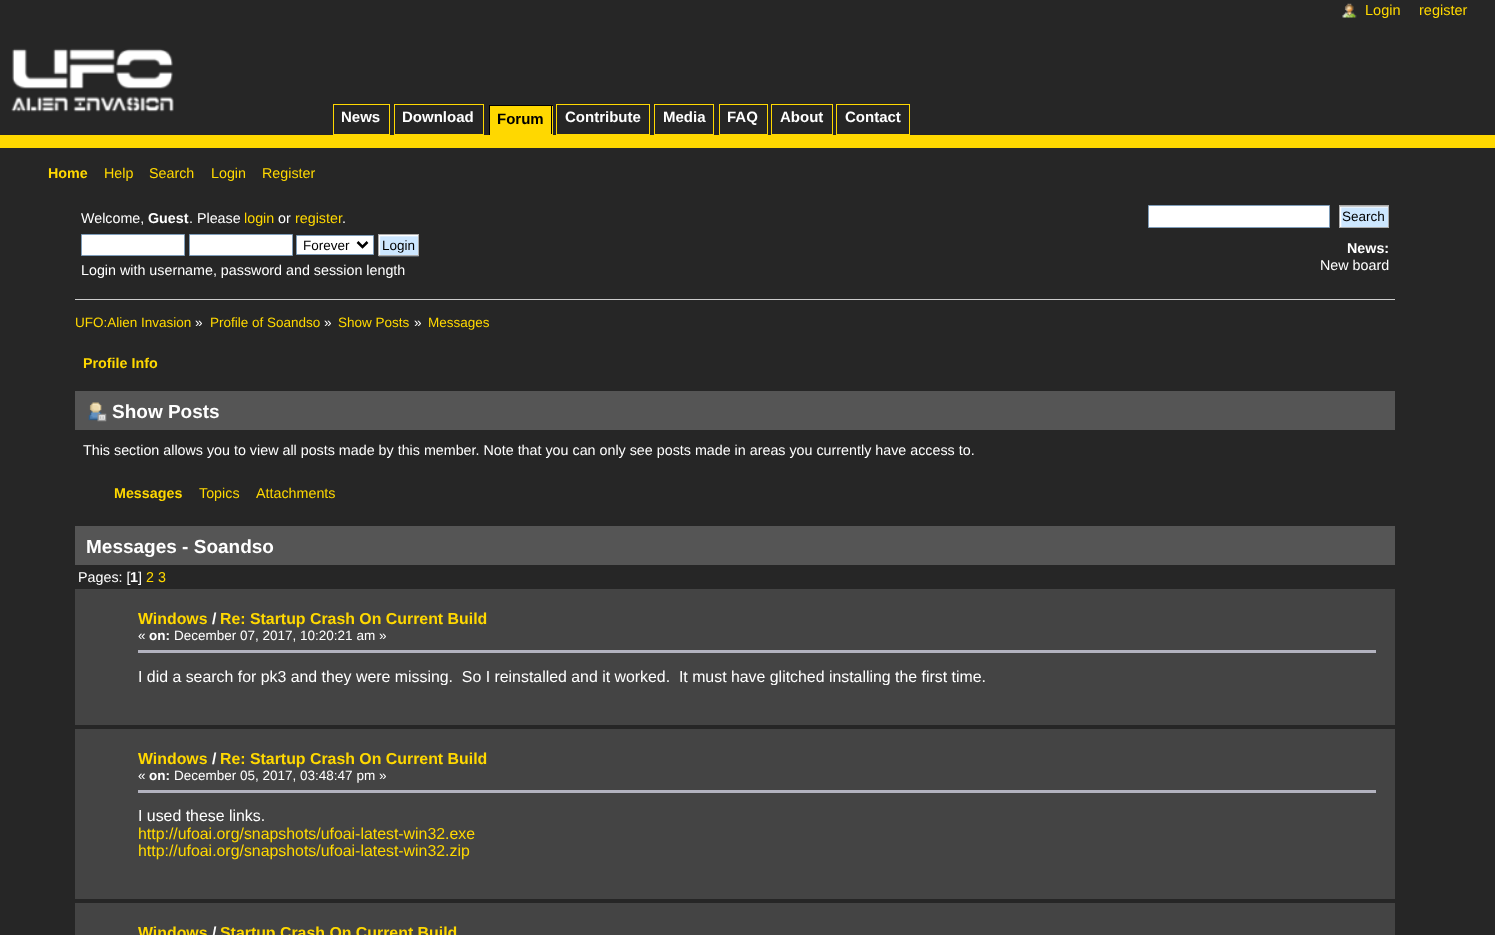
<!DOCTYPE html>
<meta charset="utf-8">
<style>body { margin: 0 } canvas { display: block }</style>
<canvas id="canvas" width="1495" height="935"></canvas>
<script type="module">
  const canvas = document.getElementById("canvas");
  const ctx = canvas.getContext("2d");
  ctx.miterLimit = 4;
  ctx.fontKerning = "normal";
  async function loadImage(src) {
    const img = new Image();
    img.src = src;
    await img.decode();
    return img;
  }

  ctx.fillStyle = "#262626";
  ctx.fillRect(0, 0, 1495, 935);
  ctx.drawImage(await loadImage("img1.png"), 1342, 3, 15, 15);
  ctx.font = "14.5px Liberation Sans";
  ctx.fillStyle = "#ffd800";
  ctx.fillText("Login", 1365, 15);
  ctx.fillText("register", 1419, 15);
  ctx.drawImage(await loadImage("img2.png"), 11, 48, 163, 64);
  ctx.fillRect(0, 135, 1495, 13);
  ctx.strokeStyle = "#ffd800";
  ctx.strokeRect(333.5, 104.5, 56, 30);
  ctx.font = "bold 15px Liberation Sans";
  ctx.fillStyle = "#ffffff";
  ctx.fillText("News", 341, 122);
  ctx.strokeRect(394.5, 104.5, 89, 30);
  ctx.fillText("Download", 402, 122);
  ctx.fillStyle = "#ffd800";
  ctx.fillRect(490, 106, 63, 28);
  ctx.fillStyle = "#000000";
  ctx.fillText("Forum", 497, 124);
  ctx.fillRect(489, 105, 64, 1);
  ctx.fillRect(551, 105, 1, 30);
  ctx.fillStyle = "#ffd800";
  ctx.fillRect(489, 134, 64, 1);
  ctx.fillStyle = "#000000";
  ctx.fillRect(489, 105, 1, 30);
  ctx.strokeRect(556.5, 104.5, 93, 30);
  ctx.fillStyle = "#ffffff";
  ctx.fillText("Contribute", 565, 122);
  ctx.strokeRect(654.5, 104.5, 59, 30);
  ctx.fillText("Media", 663, 122);
  ctx.strokeRect(719.5, 104.5, 48, 30);
  ctx.fillText("FAQ", 727, 122);
  ctx.strokeRect(771.5, 104.5, 61, 30);
  ctx.fillText("About", 780, 122);
  ctx.strokeRect(836.5, 104.5, 73, 30);
  ctx.fillText("Contact", 845, 122);
  ctx.font = "bold 14.3px Liberation Sans";
  ctx.fillStyle = "#ffd800";
  ctx.fillText("Home", 48, 178);
  ctx.font = "14.3px Liberation Sans";
  ctx.fillText("Help", 104, 178);
  ctx.fillText("Search", 149, 178);
  ctx.fillText("Login", 211, 178);
  ctx.fillText("Register", 262, 178);
  ctx.fillStyle = "#ffffff";
  ctx.fillText("Welcome,", 81, 223);
  ctx.font = "bold 14.3px Liberation Sans";
  ctx.fillText("Guest", 148, 223);
  ctx.font = "14.3px Liberation Sans";
  ctx.fillText(". Please", 189, 223);
  ctx.fillStyle = "#ffd800";
  ctx.fillText("login", 244, 223);
  ctx.fillStyle = "#ffffff";
  ctx.fillText("or", 278, 223);
  ctx.fillStyle = "#ffd800";
  ctx.fillText("register", 295, 223);
  ctx.fillStyle = "#ffffff";
  ctx.fillText(".", 342, 223);
  ctx.beginPath();
  ctx.rect(81.5, 234.5, 103, 21);
  ctx.fill();
  ctx.strokeStyle = "#7f9db9";
  ctx.stroke();
  ctx.beginPath();
  ctx.rect(189.5, 234.5, 103, 21);
  ctx.fill();
  ctx.stroke();
  ctx.beginPath();
  ctx.rect(296.5, 235.5, 77, 19);
  ctx.fill();
  ctx.stroke();
  ctx.beginPath();
  ctx.moveTo(357.5, 242);
  ctx.lineTo(362.5, 247);
  ctx.lineTo(367.5, 242);
  ctx.strokeStyle = "#000000";
  ctx.lineWidth = 2.5;
  ctx.stroke();
  ctx.font = "13.5px Liberation Sans";
  ctx.fillStyle = "#000000";
  ctx.fillText("Forever", 303, 250);
  ctx.drawImage(await loadImage("img3.png"), 378, 235, 41, 22);
  ctx.strokeStyle = "#aaaaaa";
  ctx.lineWidth = 1;
  ctx.strokeRect(378.5, 234.5, 40, 21);
  ctx.fillText("Login", 382, 250);
  ctx.font = "14.3px Liberation Sans";
  ctx.fillStyle = "#ffffff";
  ctx.fillText("Login with username, password and session length", 81, 275);
  ctx.beginPath();
  ctx.rect(1148.5, 205.5, 181, 22);
  ctx.fill();
  ctx.strokeStyle = "#7f9db9";
  ctx.stroke();
  ctx.drawImage(await loadImage("img4.png"), 1340, 206, 48, 21);
  ctx.strokeStyle = "#aaaaaa";
  ctx.strokeRect(1339.5, 205.5, 49, 22);
  ctx.font = "13.5px Liberation Sans";
  ctx.fillStyle = "#000000";
  ctx.fillText("Search", 1342, 221);
  ctx.font = "bold 14.3px Liberation Sans";
  ctx.fillStyle = "#ffffff";
  ctx.fillText("News:", 1347, 253);
  ctx.font = "14.3px Liberation Sans";
  ctx.fillText("New board", 1320, 270);
  ctx.fillStyle = "#cccccc";
  ctx.fillRect(75, 299, 1320, 1);
  ctx.font = "13.5px Liberation Sans";
  ctx.fillStyle = "#ffd800";
  ctx.fillText("UFO:Alien Invasion", 75, 327);
  ctx.fillStyle = "#ffffff";
  ctx.fillText("»", 195, 327);
  ctx.fillStyle = "#ffd800";
  ctx.fillText("Profile of Soandso", 210, 327);
  ctx.fillStyle = "#ffffff";
  ctx.fillText("»", 324, 327);
  ctx.fillStyle = "#ffd800";
  ctx.fillText("Show Posts", 338, 327);
  ctx.fillStyle = "#ffffff";
  ctx.fillText("»", 414, 327);
  ctx.fillStyle = "#ffd800";
  ctx.fillText("Messages", 428, 327);
  ctx.font = "bold 14.3px Liberation Sans";
  ctx.fillText("Profile Info", 83, 368);
  ctx.fillStyle = "#555555";
  ctx.fillRect(75, 391, 1320, 39);
  ctx.drawImage(await loadImage("img5.png"), 88, 402, 19, 20);
  ctx.font = "bold 19px Liberation Sans";
  ctx.fillStyle = "#ffffff";
  ctx.fillText("Show Posts", 112, 418);
  ctx.font = "14.3px Liberation Sans";
  ctx.fillText("This section allows you to view all posts made by this member. Note that you can only see posts made in areas you currently have access to.", 83, 455);
  ctx.font = "bold 14.3px Liberation Sans";
  ctx.fillStyle = "#ffd800";
  ctx.fillText("Messages", 114, 498);
  ctx.font = "14.3px Liberation Sans";
  ctx.fillText("Topics", 199, 498);
  ctx.fillText("Attachments", 256, 498);
  ctx.fillStyle = "#555555";
  ctx.fillRect(75, 526, 1320, 39);
  ctx.font = "bold 19px Liberation Sans";
  ctx.fillStyle = "#ffffff";
  ctx.fillText("Messages - Soandso", 86, 553);
  ctx.font = "14.3px Liberation Sans";
  ctx.fillText("Pages: [", 78, 582);
  ctx.font = "bold 14.3px Liberation Sans";
  ctx.fillText("1", 130, 582);
  ctx.font = "14.3px Liberation Sans";
  ctx.fillText("]", 138, 582);
  ctx.fillStyle = "#ffd800";
  ctx.fillText("2 3", 146, 582);
  ctx.fillStyle = "#444444";
  ctx.fillRect(75, 589, 1320, 136);
  ctx.font = "bold 15.88px Liberation Sans";
  ctx.fillStyle = "#ffd800";
  ctx.fillText("Windows", 138, 624);
  ctx.fillStyle = "#ffffff";
  ctx.fillText("/", 212, 624);
  ctx.fillStyle = "#ffd800";
  ctx.fillText("Re: Startup Crash On Current Build", 220, 624);
  ctx.font = "13.5px Liberation Sans";
  ctx.fillStyle = "#ffffff";
  ctx.fillText("«", 138, 640);
  ctx.font = "bold 13.5px Liberation Sans";
  ctx.fillText("on:", 149, 640);
  ctx.font = "13.5px Liberation Sans";
  ctx.fillText("December 07, 2017, 10:20:21 am »", 174, 640);
  ctx.fillStyle = "#b3b3bf";
  ctx.fillRect(138, 650, 1238, 3);
  ctx.save();
  ctx.beginPath();
  ctx.rect(138, 653, 1238, 32);
  ctx.clip();
  ctx.font = "15.88px Liberation Sans";
  ctx.fillStyle = "#ffffff";
  ctx.fillText("I did a search for pk3 and they were missing.  So I reinstalled and it worked.  It must have glitched installing the first time.", 138, 682);
  ctx.restore();
  ctx.fillStyle = "#444444";
  ctx.fillRect(75, 729, 1320, 170);
  ctx.font = "bold 15.88px Liberation Sans";
  ctx.fillStyle = "#ffd800";
  ctx.fillText("Windows", 138, 764);
  ctx.fillStyle = "#ffffff";
  ctx.fillText("/", 212, 764);
  ctx.fillStyle = "#ffd800";
  ctx.fillText("Re: Startup Crash On Current Build", 220, 764);
  ctx.font = "13.5px Liberation Sans";
  ctx.fillStyle = "#ffffff";
  ctx.fillText("«", 138, 780);
  ctx.font = "bold 13.5px Liberation Sans";
  ctx.fillText("on:", 149, 780);
  ctx.font = "13.5px Liberation Sans";
  ctx.fillText("December 05, 2017, 03:48:47 pm »", 174, 780);
  ctx.fillStyle = "#b3b3bf";
  ctx.fillRect(138, 790, 1238, 3);
  ctx.font = "15.88px Liberation Sans";
  ctx.fillStyle = "#ffffff";
  ctx.fillText("I used these links.", 138, 821);
  ctx.fillStyle = "#ffd800";
  ctx.fillText("http://ufoai.org/snapshots/ufoai-latest-win32.exe", 138, 839);
  ctx.fillText("http://ufoai.org/snapshots/ufoai-latest-win32.zip", 138, 856);
  ctx.fillStyle = "#444444";
  ctx.fillRect(75, 903, 1320, 32);
  ctx.font = "bold 15.88px Liberation Sans";
  ctx.fillStyle = "#ffd800";
  ctx.fillText("Windows", 138, 938);
  ctx.fillStyle = "#ffffff";
  ctx.fillText("/", 212, 938);
  ctx.fillStyle = "#ffd800";
  ctx.fillText("Startup Crash On Current Build", 220, 938);
</script>
